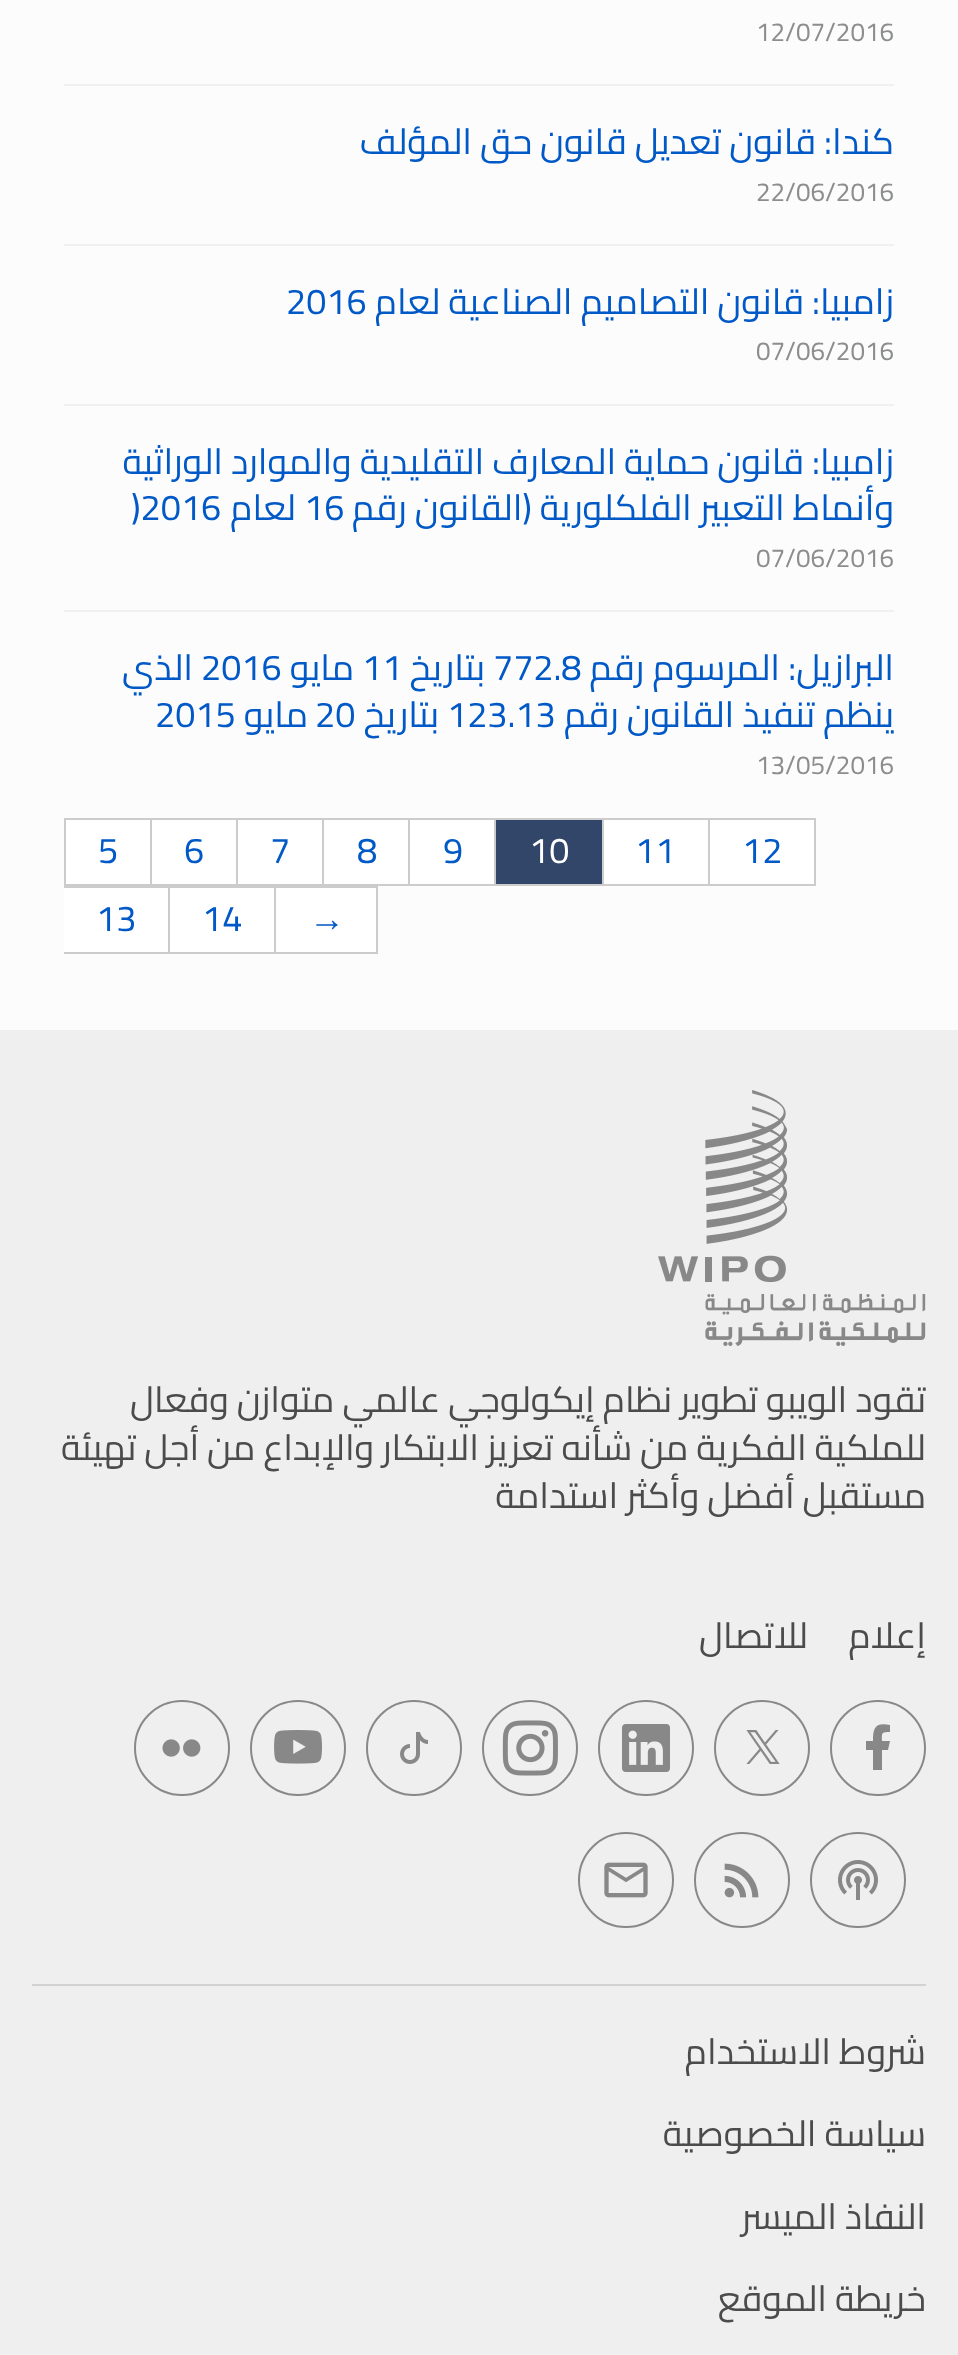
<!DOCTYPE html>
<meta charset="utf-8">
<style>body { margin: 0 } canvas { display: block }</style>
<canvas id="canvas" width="958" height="2355"></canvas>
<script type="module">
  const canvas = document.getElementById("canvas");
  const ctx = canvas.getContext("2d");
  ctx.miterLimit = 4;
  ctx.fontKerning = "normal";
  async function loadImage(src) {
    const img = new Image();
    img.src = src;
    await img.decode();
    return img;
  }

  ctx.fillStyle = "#fcfcfc";
  ctx.fillRect(0, 0, 958, 2355);
  ctx.fillStyle = "#f0f0f0";
  ctx.fillRect(64, 84, 830, 2);
  ctx.font = "26px Cairo";
  ctx.fillStyle = "#8c8e8d";
  ctx.fillText("12/07/2016", 756, 41);
  ctx.fillStyle = "#f0f0f0";
  ctx.fillRect(64, 244, 830, 2);
  ctx.direction = "rtl";
  ctx.font = "36px Cairo";
  ctx.fillStyle = "#0059c6";
  ctx.fillText("كندا: قانون تعديل قانون حق المؤلف", 894, 154);
  ctx.direction = "ltr";
  ctx.font = "26px Cairo";
  ctx.fillStyle = "#8c8e8d";
  ctx.fillText("22/06/2016", 756, 201);
  ctx.fillStyle = "#f0f0f0";
  ctx.fillRect(64, 404, 830, 2);
  ctx.direction = "rtl";
  ctx.font = "36px Cairo";
  ctx.fillStyle = "#0059c6";
  ctx.fillText("زامبيا: قانون التصاميم الصناعية لعام", 894, 314);
  ctx.direction = "ltr";
  ctx.fillText("2016", 286, 314);
  ctx.font = "26px Cairo";
  ctx.fillStyle = "#8c8e8d";
  ctx.fillText("07/06/2016", 756, 360);
  ctx.fillStyle = "#f0f0f0";
  ctx.fillRect(64, 610, 830, 2);
  ctx.direction = "rtl";
  ctx.font = "36px Cairo";
  ctx.fillStyle = "#0059c6";
  ctx.fillText("زامبيا: قانون حماية المعارف التقليدية والموارد الوراثية", 894, 474);
  ctx.fillText("وأنماط التعبير الفلكلورية (القانون رقم", 894, 520);
  ctx.direction = "ltr";
  ctx.fillText("16", 304, 520);
  ctx.direction = "rtl";
  ctx.fillText("لعام", 296, 520);
  ctx.direction = "ltr";
  ctx.fillText(")2016", 131, 520);
  ctx.font = "26px Cairo";
  ctx.fillStyle = "#8c8e8d";
  ctx.fillText("07/06/2016", 756, 567);
  ctx.direction = "rtl";
  ctx.font = "36px Cairo";
  ctx.fillStyle = "#0059c6";
  ctx.fillText("البرازيل:", 894, 680);
  ctx.fillText("المرسوم رقم", 780, 680);
  ctx.direction = "ltr";
  ctx.fillText("772.8", 493, 680);
  ctx.direction = "rtl";
  ctx.fillText("بتاريخ", 485, 680);
  ctx.direction = "ltr";
  ctx.fillText("11", 362, 680);
  ctx.direction = "rtl";
  ctx.fillText("مايو", 354, 680);
  ctx.direction = "ltr";
  ctx.fillText("2016", 201, 680);
  ctx.direction = "rtl";
  ctx.fillText("الذي", 193, 680);
  ctx.fillText("ينظم تنفيذ القانون رقم", 894, 727);
  ctx.direction = "ltr";
  ctx.fillText("123.13", 447, 727);
  ctx.direction = "rtl";
  ctx.fillText("بتاريخ", 439, 727);
  ctx.direction = "ltr";
  ctx.fillText("20", 315, 727);
  ctx.direction = "rtl";
  ctx.fillText("مايو", 308, 727);
  ctx.direction = "ltr";
  ctx.fillText("2015", 155, 727);
  ctx.font = "26px Cairo";
  ctx.fillStyle = "#8c8e8d";
  ctx.fillText("13/05/2016", 756, 774);
  ctx.fillStyle = "#ffffff";
  ctx.fillRect(710, 820, 104, 64);
  ctx.fillStyle = "#cccccc";
  ctx.fillRect(152, 818, 664, 2);
  ctx.fillRect(814, 818, 2, 68);
  ctx.fillRect(710, 884, 106, 2);
  ctx.font = "36px Cairo";
  ctx.fillStyle = "#0059c6";
  ctx.fillText("12", 742, 863);
  ctx.fillStyle = "#ffffff";
  ctx.fillRect(604, 820, 104, 64);
  ctx.fillStyle = "#cccccc";
  ctx.fillRect(708, 818, 2, 68);
  ctx.fillRect(604, 884, 106, 2);
  ctx.fillStyle = "#0059c6";
  ctx.fillText("11", 635, 863);
  ctx.fillStyle = "#314668";
  ctx.fillRect(496, 820, 106, 64);
  ctx.fillStyle = "#cccccc";
  ctx.fillRect(602, 818, 2, 68);
  ctx.fillRect(496, 884, 108, 2);
  ctx.fillStyle = "#ffffff";
  ctx.fillText("10", 529, 863);
  ctx.fillRect(410, 820, 84, 64);
  ctx.fillStyle = "#cccccc";
  ctx.fillRect(494, 818, 2, 68);
  ctx.fillRect(410, 884, 86, 2);
  ctx.fillStyle = "#0059c6";
  ctx.fillText("9", 443, 863);
  ctx.fillStyle = "#ffffff";
  ctx.fillRect(324, 820, 84, 64);
  ctx.fillStyle = "#cccccc";
  ctx.fillRect(408, 818, 2, 68);
  ctx.fillRect(324, 884, 86, 2);
  ctx.fillStyle = "#0059c6";
  ctx.fillText("8", 357, 863);
  ctx.fillStyle = "#ffffff";
  ctx.fillRect(238, 820, 84, 64);
  ctx.fillStyle = "#cccccc";
  ctx.fillRect(322, 818, 2, 68);
  ctx.fillRect(238, 884, 86, 2);
  ctx.fillStyle = "#0059c6";
  ctx.fillText("7", 270, 863);
  ctx.fillStyle = "#ffffff";
  ctx.fillRect(152, 820, 84, 64);
  ctx.fillStyle = "#cccccc";
  ctx.fillRect(236, 818, 2, 68);
  ctx.fillRect(152, 884, 86, 2);
  ctx.fillStyle = "#0059c6";
  ctx.fillText("6", 184, 863);
  ctx.fillStyle = "#ffffff";
  ctx.beginPath();
  ctx.rect(65, 819, 86, 66);
  ctx.fill();
  ctx.strokeStyle = "#cccccc";
  ctx.lineWidth = 2;
  ctx.stroke();
  ctx.fillStyle = "#0059c6";
  ctx.fillText("5", 98, 863);
  ctx.fillStyle = "#ffffff";
  ctx.fillRect(276, 888, 100, 64);
  ctx.fillStyle = "#cccccc";
  ctx.fillRect(64, 886, 314, 2);
  ctx.fillRect(376, 886, 2, 68);
  ctx.fillRect(276, 952, 102, 2);
  ctx.font = "36px Liberation Sans";
  ctx.fillStyle = "#0059c6";
  ctx.fillText("→", 309, 931);
  ctx.fillStyle = "#ffffff";
  ctx.fillRect(170, 888, 104, 64);
  ctx.fillStyle = "#cccccc";
  ctx.fillRect(274, 886, 2, 68);
  ctx.fillRect(170, 952, 106, 2);
  ctx.font = "36px Cairo";
  ctx.fillStyle = "#0059c6";
  ctx.fillText("14", 202, 931);
  ctx.fillStyle = "#ffffff";
  ctx.fillRect(64, 888, 104, 64);
  ctx.fillStyle = "#cccccc";
  ctx.fillRect(168, 886, 2, 68);
  ctx.fillRect(64, 952, 106, 2);
  ctx.fillStyle = "#0059c6";
  ctx.fillText("13", 96, 931);
  ctx.fillStyle = "#efefef";
  ctx.fillRect(0, 1030, 958, 1325);
  ctx.drawImage(await loadImage("img1.png"), 658, 1090, 268, 256);
  ctx.direction = "rtl";
  ctx.fillStyle = "#4b4b4b";
  ctx.fillText("تقود الويبو تطوير نظام إيكولوجي عالمي متوازن وفعال", 926, 1412);
  ctx.fillText("للملكية الفكرية من شأنه تعزيز الابتكار والإبداع من أجل تهيئة", 926, 1460);
  ctx.fillText("مستقبل أفضل وأكثر استدامة", 926, 1508);
  ctx.fillText("إعلام", 926, 1648);
  ctx.fillText("للاتصال", 808, 1648);
  ctx.beginPath();
  ctx.arc(878, 1748, 47, 0, Math.PI * 2);
  ctx.strokeStyle = "#888888";
  ctx.stroke();
  ctx.fillStyle = "#888888";
  ctx.beginPath();
  ctx.moveTo(888, 1750);
  ctx.lineTo(890, 1741);
  ctx.lineTo(882, 1741);
  ctx.bezierCurveTo(882, 1733, 881, 1732, 890, 1732);
  ctx.lineTo(890, 1725);
  ctx.bezierCurveTo(875, 1722, 873, 1728, 873, 1741);
  ctx.lineTo(866, 1741);
  ctx.lineTo(866, 1750);
  ctx.lineTo(873, 1750);
  ctx.lineTo(873, 1770);
  ctx.lineTo(882, 1770);
  ctx.lineTo(882, 1750);
  ctx.closePath();
  ctx.fill();
  ctx.beginPath();
  ctx.arc(762, 1748, 47, 0, Math.PI * 2);
  ctx.stroke();
  ctx.drawImage(await loadImage("img2.png"), 746, 1730, 34, 34);
  ctx.beginPath();
  ctx.arc(646, 1748, 47, 0, Math.PI * 2);
  ctx.stroke();
  ctx.drawImage(await loadImage("img3.png"), 622, 1724, 48, 48);
  ctx.beginPath();
  ctx.arc(530, 1748, 47, 0, Math.PI * 2);
  ctx.stroke();
  ctx.drawImage(await loadImage("img4.png"), 502, 1720, 56, 56);
  ctx.beginPath();
  ctx.arc(414, 1748, 47, 0, Math.PI * 2);
  ctx.stroke();
  ctx.drawImage(await loadImage("img5.png"), 400, 1732, 28, 32);
  ctx.beginPath();
  ctx.arc(298, 1748, 47, 0, Math.PI * 2);
  ctx.stroke();
  ctx.drawImage(await loadImage("img6.png"), 274, 1730, 48, 34);
  ctx.beginPath();
  ctx.arc(182, 1748, 47, 0, Math.PI * 2);
  ctx.stroke();
  ctx.drawImage(await loadImage("img7.png"), 162, 1739, 39, 18);
  ctx.beginPath();
  ctx.arc(858, 1880, 47, 0, Math.PI * 2);
  ctx.stroke();
  ctx.drawImage(await loadImage("img8.png"), 838, 1860, 40, 40);
  ctx.beginPath();
  ctx.arc(742, 1880, 47, 0, Math.PI * 2);
  ctx.stroke();
  ctx.drawImage(await loadImage("img9.png"), 724, 1863, 35, 35);
  ctx.beginPath();
  ctx.arc(626, 1880, 47, 0, Math.PI * 2);
  ctx.stroke();
  ctx.drawImage(await loadImage("img10.png"), 604, 1862, 44, 36);
  ctx.fillStyle = "#d2d2d2";
  ctx.fillRect(32, 1984, 894, 2);
  ctx.fillStyle = "#4b4b4b";
  ctx.fillText("شروط الاستخدام", 926, 2064);
  ctx.fillText("سياسة الخصوصية", 926, 2146);
  ctx.fillText("النفاذ الميسر", 926, 2229);
  ctx.fillText("خريطة الموقع", 926, 2311);
</script>
